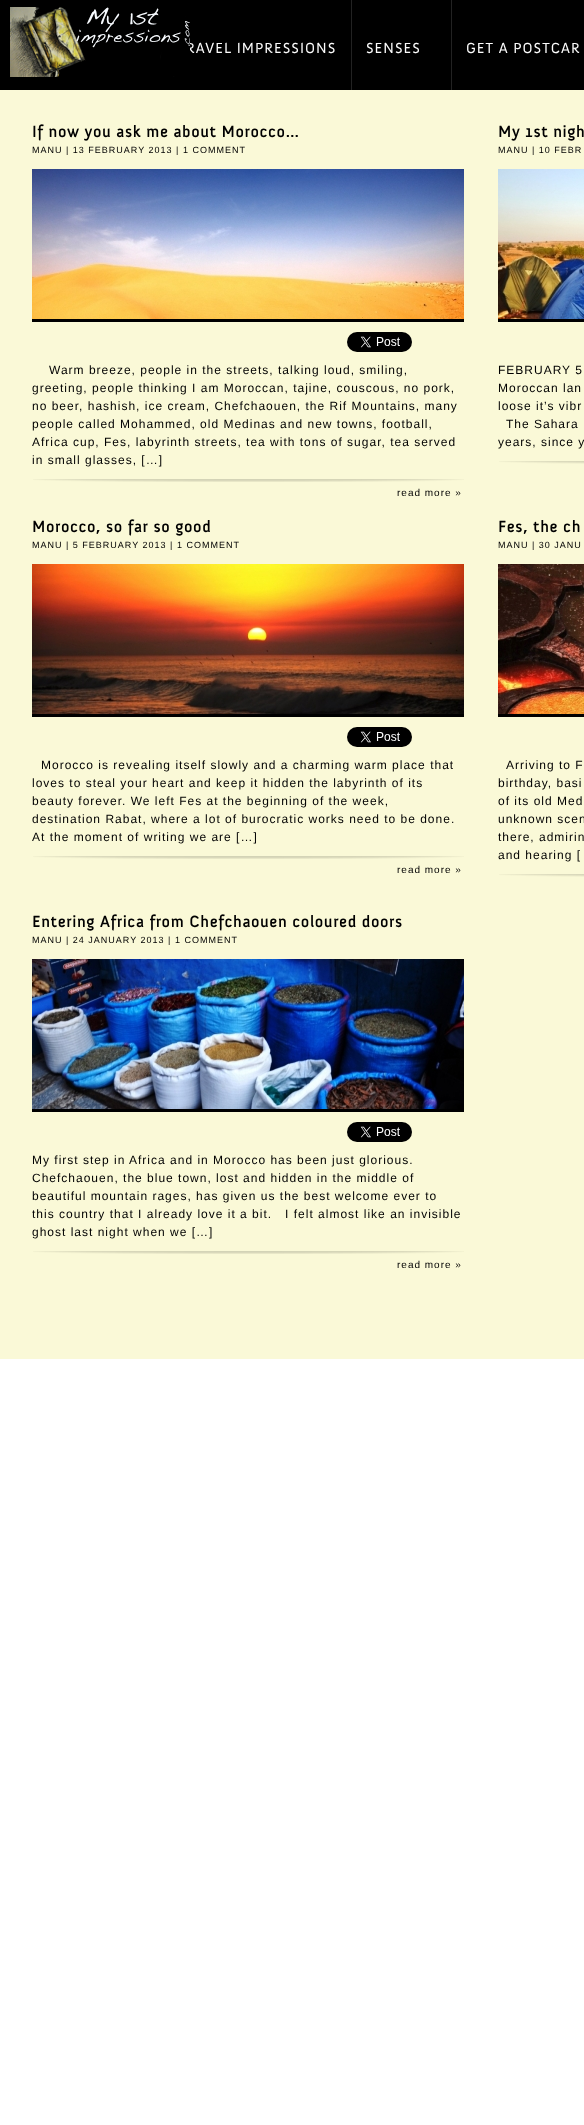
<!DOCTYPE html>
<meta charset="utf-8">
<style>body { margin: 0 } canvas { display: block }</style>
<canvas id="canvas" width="584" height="2125"></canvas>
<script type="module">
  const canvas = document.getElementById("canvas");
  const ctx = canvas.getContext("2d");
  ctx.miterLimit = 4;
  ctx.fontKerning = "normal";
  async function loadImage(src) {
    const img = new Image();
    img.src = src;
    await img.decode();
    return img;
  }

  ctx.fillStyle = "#ffffff";
  ctx.fillRect(0, 0, 584, 2125);
  ctx.fillStyle = "#000000";
  ctx.fillRect(0, 0, 584, 90);
  ctx.letterSpacing = "1px";
  ctx.font = "15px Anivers";
  ctx.fillStyle = "#fcfcfc";
  ctx.fillText("RAVEL IMPRESSIONS", 186, 53);
  ctx.drawImage(await loadImage("img1.png"), 10, 7, 180, 70);
  ctx.fillStyle = "#222222";
  ctx.fillRect(351, 0, 1, 90);
  ctx.fillStyle = "#fcfcfc";
  ctx.fillText("SENSES", 366, 53);
  ctx.fillStyle = "#222222";
  ctx.fillRect(451, 0, 1, 90);
  ctx.fillStyle = "#fcfcfc";
  ctx.fillText("GET A POSTCAR", 466, 53);
  ctx.fillStyle = "#faf9d7";
  ctx.fillRect(0, 90, 584, 1269);
  ctx.font = "bold 16px Anivers";
  ctx.fillStyle = "#000000";
  ctx.fillText("If now you ask me about Morocco…", 32, 137);
  ctx.font = "9px Liberation Sans";
  ctx.fillText("MANU | 13 FEBRUARY 2013 | 1 COMMENT", 32, 153);
  ctx.drawImage(await loadImage("img2.png"), 32, 169, 432, 150);
  ctx.fillRect(32, 319, 432, 3);
  ctx.drawImage(await loadImage("img3.png"), 347, 332, 65, 20);
  ctx.font = "12px Liberation Sans";
  ctx.fillText("Warm breeze, people in the streets, talking loud, smiling,", 49, 374);
  ctx.fillText("greeting, people thinking I am Moroccan, tajine, couscous, no pork,", 32, 392);
  ctx.fillText("no beer, hashish, ice cream, Chefchaouen, the Rif Mountains, many", 32, 410);
  ctx.fillText("people called Mohammed, old Medinas and new towns, football,", 32, 428);
  ctx.fillText("Africa cup, Fes, labyrinth streets, tea with tons of sugar, tea served", 32, 446);
  ctx.fillText("in small glasses, […]", 32, 464);
  ctx.drawImage(await loadImage("img4.png"), 33, 479, 431, 3);
  ctx.font = "10px Liberation Sans";
  ctx.fillText("read more »", 397, 496);
  ctx.font = "bold 16px Anivers";
  ctx.fillText("My 1st nigh", 498, 137);
  ctx.font = "9px Liberation Sans";
  ctx.fillText("MANU | 10 FEBR", 498, 153);
  ctx.drawImage(await loadImage("img5.png"), 498, 169, 86, 150);
  ctx.fillRect(498, 319, 86, 3);
  ctx.font = "12px Liberation Sans";
  ctx.fillText("FEBRUARY 5", 498, 374);
  ctx.fillText("Moroccan lan", 498, 392);
  ctx.fillText("loose it’s vibr", 498, 410);
  ctx.fillText("The Sahara", 506, 428);
  ctx.fillText("years, since y", 498, 446);
  ctx.drawImage(await loadImage("img6.png"), 499, 461, 85, 3);
  ctx.font = "bold 16px Anivers";
  ctx.fillText("Morocco, so far so good", 32, 532);
  ctx.font = "9px Liberation Sans";
  ctx.fillText("MANU | 5 FEBRUARY 2013 | 1 COMMENT", 32, 548);
  ctx.drawImage(await loadImage("img7.png"), 32, 564, 432, 150);
  ctx.fillRect(32, 714, 432, 3);
  ctx.drawImage(await loadImage("img3.png"), 347, 727, 65, 20);
  ctx.font = "12px Liberation Sans";
  ctx.fillText("Morocco is revealing itself slowly and a charming warm place that", 41, 769);
  ctx.fillText("loves to steal your heart and keep it hidden the labyrinth of its", 32, 787);
  ctx.fillText("beauty forever. We left Fes at the beginning of the week,", 32, 805);
  ctx.fillText("destination Rabat, where a lot of burocratic works need to be done.", 32, 823);
  ctx.fillText("At the moment of writing we are […]", 32, 841);
  ctx.drawImage(await loadImage("img4.png"), 33, 856, 431, 3);
  ctx.font = "10px Liberation Sans";
  ctx.fillText("read more »", 397, 873);
  ctx.font = "bold 16px Anivers";
  ctx.fillText("Fes, the ch", 498, 532);
  ctx.font = "9px Liberation Sans";
  ctx.fillText("MANU | 30 JANU", 498, 548);
  ctx.drawImage(await loadImage("img8.png"), 498, 564, 86, 150);
  ctx.fillRect(498, 714, 86, 3);
  ctx.font = "12px Liberation Sans";
  ctx.fillText("Arriving to F", 506, 769);
  ctx.fillText("birthday, basi", 498, 787);
  ctx.fillText("of its old Med", 498, 805);
  ctx.fillText("unknown scen", 498, 823);
  ctx.fillText("there, admirin", 498, 841);
  ctx.fillText("and hearing [", 498, 859);
  ctx.drawImage(await loadImage("img6.png"), 499, 874, 85, 3);
  ctx.font = "bold 16px Anivers";
  ctx.fillText("Entering Africa from Chefchaouen coloured doors", 32, 927);
  ctx.font = "9px Liberation Sans";
  ctx.fillText("MANU | 24 JANUARY 2013 | 1 COMMENT", 32, 943);
  ctx.drawImage(await loadImage("img9.png"), 32, 959, 432, 150);
  ctx.fillRect(32, 1109, 432, 3);
  ctx.drawImage(await loadImage("img3.png"), 347, 1122, 65, 20);
  ctx.font = "12px Liberation Sans";
  ctx.fillText("My first step in Africa and in Morocco has been just glorious.", 32, 1164);
  ctx.fillText("Chefchaouen, the blue town, lost and hidden in the middle of", 32, 1182);
  ctx.fillText("beautiful mountain rages, has given us the best welcome ever to", 32, 1200);
  ctx.fillText("this country that I already love it a bit.   I felt almost like an invisible", 32, 1218);
  ctx.fillText("ghost last night when we […]", 32, 1236);
  ctx.drawImage(await loadImage("img4.png"), 33, 1251, 431, 3);
  ctx.font = "10px Liberation Sans";
  ctx.fillText("read more »", 397, 1268);
</script>
